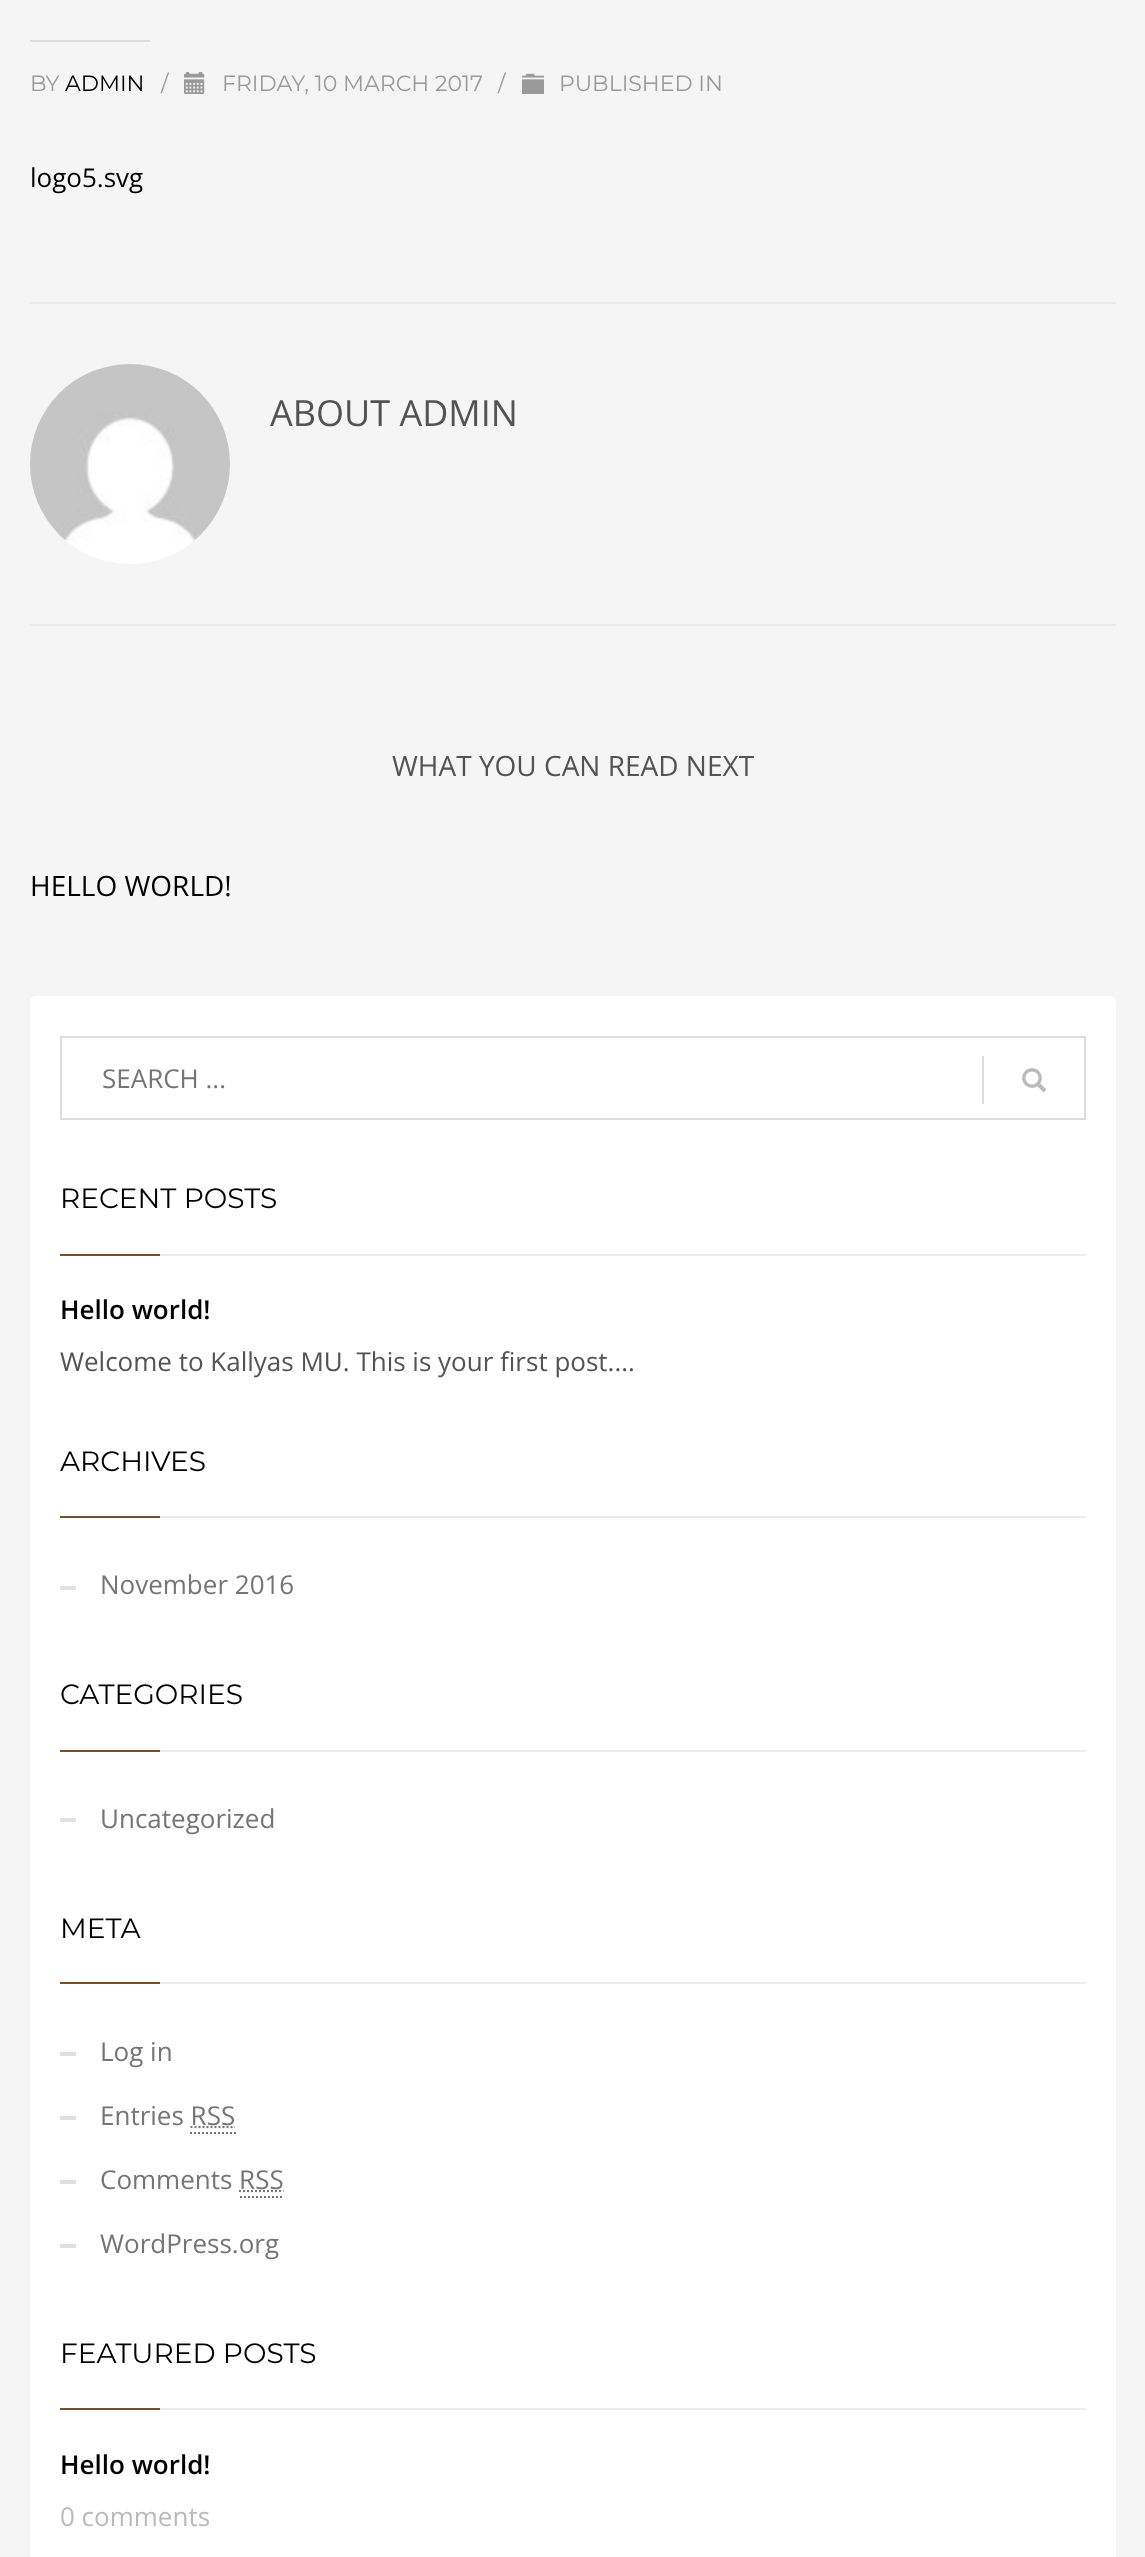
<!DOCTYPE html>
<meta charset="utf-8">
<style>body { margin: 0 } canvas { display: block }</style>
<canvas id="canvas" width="1145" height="2557"></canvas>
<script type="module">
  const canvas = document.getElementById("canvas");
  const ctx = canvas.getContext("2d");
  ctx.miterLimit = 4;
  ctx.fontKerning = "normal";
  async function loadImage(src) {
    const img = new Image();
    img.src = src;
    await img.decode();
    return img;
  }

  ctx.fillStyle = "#f5f5f5";
  ctx.fillRect(0, 0, 1145, 2557);
  ctx.fillStyle = "#dddddd";
  ctx.fillRect(30, 40, 120, 2);
  ctx.font = "22px Montserrat";
  ctx.fillStyle = "#9a9a9a";
  ctx.fillText("BY", 30, 91);
  ctx.fillStyle = "#000000";
  ctx.fillText("ADMIN", 65, 91);
  ctx.fillStyle = "#9a9a9a";
  ctx.fillText("/", 161, 91);
  ctx.drawImage(await loadImage("img1.png"), 184, 72, 21, 22);
  ctx.fillText("FRIDAY, 10 MARCH 2017", 222, 91);
  ctx.fillText("/", 498, 91);
  ctx.drawImage(await loadImage("img2.png"), 522, 73, 22, 21);
  ctx.fillText("PUBLISHED IN", 559, 91);
  ctx.font = "26px Open Sans";
  ctx.fillStyle = "#000000";
  ctx.fillText("logo5.svg", 30, 187);
  ctx.fillStyle = "#e9e9e9";
  ctx.fillRect(30, 302, 1086, 2);
  ctx.fillRect(30, 624, 1086, 2);
  ctx.drawImage(await loadImage("img3.png"), 30, 364, 200, 200);
  ctx.font = "36px Open Sans";
  ctx.fillStyle = "#535353";
  ctx.fillText("ABOUT ADMIN", 270, 426);
  ctx.font = "28px Open Sans";
  ctx.fillText("WHAT YOU CAN READ NEXT", 392, 776);
  ctx.fillStyle = "#000000";
  ctx.fillText("HELLO WORLD!", 30, 896);
  ctx.fillStyle = "#ffffff";
  ctx.beginPath();
  ctx.roundRect(30, 996, 1086, 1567, 6);
  ctx.fill();
  ctx.strokeStyle = "#dddddd";
  ctx.lineWidth = 2;
  ctx.strokeRect(61, 1037, 1024, 82);
  ctx.font = "26px Open Sans";
  ctx.fillStyle = "#757575";
  ctx.fillText("SEARCH ...", 102, 1088);
  ctx.fillStyle = "#dddddd";
  ctx.fillRect(982, 1056, 2, 48);
  ctx.drawImage(await loadImage("img4.png"), 1022, 1068, 25, 25);
  ctx.font = "28px Montserrat";
  ctx.fillStyle = "#000000";
  ctx.fillText("RECENT POSTS", 60, 1208);
  ctx.fillStyle = "#764c29";
  ctx.fillRect(60, 1254, 100, 2);
  ctx.fillStyle = "#ececec";
  ctx.fillRect(160, 1254, 926, 2);
  ctx.font = "600 26px Open Sans";
  ctx.fillStyle = "#000000";
  ctx.fillText("Hello world!", 60, 1319);
  ctx.font = "26px Open Sans";
  ctx.fillStyle = "#535353";
  ctx.fillText("Welcome to Kallyas MU. This is your first post....", 60, 1371);
  ctx.font = "28px Montserrat";
  ctx.fillStyle = "#000000";
  ctx.fillText("ARCHIVES", 60, 1471);
  ctx.fillStyle = "#764c29";
  ctx.fillRect(60, 1516, 100, 2);
  ctx.fillStyle = "#ececec";
  ctx.fillRect(160, 1516, 926, 2);
  ctx.fillStyle = "#e1e1e1";
  ctx.fillRect(60, 1586, 16, 4);
  ctx.font = "26px Open Sans";
  ctx.fillStyle = "#757575";
  ctx.fillText("November 2016", 100, 1594);
  ctx.font = "28px Montserrat";
  ctx.fillStyle = "#000000";
  ctx.fillText("CATEGORIES", 60, 1704);
  ctx.fillStyle = "#764c29";
  ctx.fillRect(60, 1750, 100, 2);
  ctx.fillStyle = "#ececec";
  ctx.fillRect(160, 1750, 926, 2);
  ctx.fillStyle = "#e1e1e1";
  ctx.fillRect(60, 1818, 16, 4);
  ctx.font = "26px Open Sans";
  ctx.fillStyle = "#757575";
  ctx.fillText("Uncategorized", 100, 1828);
  ctx.font = "28px Montserrat";
  ctx.fillStyle = "#000000";
  ctx.fillText("META", 60, 1938);
  ctx.fillStyle = "#764c29";
  ctx.fillRect(60, 1982, 100, 2);
  ctx.fillStyle = "#ececec";
  ctx.fillRect(160, 1982, 926, 2);
  ctx.fillStyle = "#e1e1e1";
  ctx.fillRect(60, 2052, 16, 4);
  ctx.font = "26px Open Sans";
  ctx.fillStyle = "#757575";
  ctx.fillText("Log in", 100, 2061);
  ctx.fillStyle = "#e1e1e1";
  ctx.fillRect(60, 2116, 16, 4);
  ctx.fillStyle = "#757575";
  ctx.fillText("Entries RSS", 100, 2125);
  ctx.beginPath();
  ctx.moveTo(190.5, 2127);
  ctx.lineTo(235, 2127);
  ctx.strokeStyle = "#747474";
  ctx.setLineDash([2, 2]);
  ctx.stroke();
  ctx.beginPath();
  ctx.moveTo(190, 2133);
  ctx.lineTo(236, 2133);
  ctx.strokeStyle = "#777777";
  ctx.stroke();
  ctx.fillStyle = "#e1e1e1";
  ctx.fillRect(60, 2180, 16, 4);
  ctx.fillStyle = "#757575";
  ctx.fillText("Comments RSS", 100, 2189);
  ctx.beginPath();
  ctx.moveTo(239, 2191);
  ctx.lineTo(283.5, 2191);
  ctx.strokeStyle = "#747474";
  ctx.stroke();
  ctx.beginPath();
  ctx.moveTo(240, 2197);
  ctx.lineTo(284, 2197);
  ctx.strokeStyle = "#777777";
  ctx.stroke();
  ctx.fillStyle = "#e1e1e1";
  ctx.fillRect(60, 2244, 16, 4);
  ctx.fillStyle = "#757575";
  ctx.fillText("WordPress.org", 100, 2253);
  ctx.font = "28px Montserrat";
  ctx.fillStyle = "#000000";
  ctx.fillText("FEATURED POSTS", 60, 2363);
  ctx.fillStyle = "#764c29";
  ctx.fillRect(60, 2408, 100, 2);
  ctx.fillStyle = "#ececec";
  ctx.fillRect(160, 2408, 926, 2);
  ctx.font = "600 26px Open Sans";
  ctx.fillStyle = "#000000";
  ctx.fillText("Hello world!", 60, 2474);
  ctx.font = "26px Open Sans";
  ctx.fillStyle = "#bababa";
  ctx.fillText("0 comments", 60, 2526);
</script>
